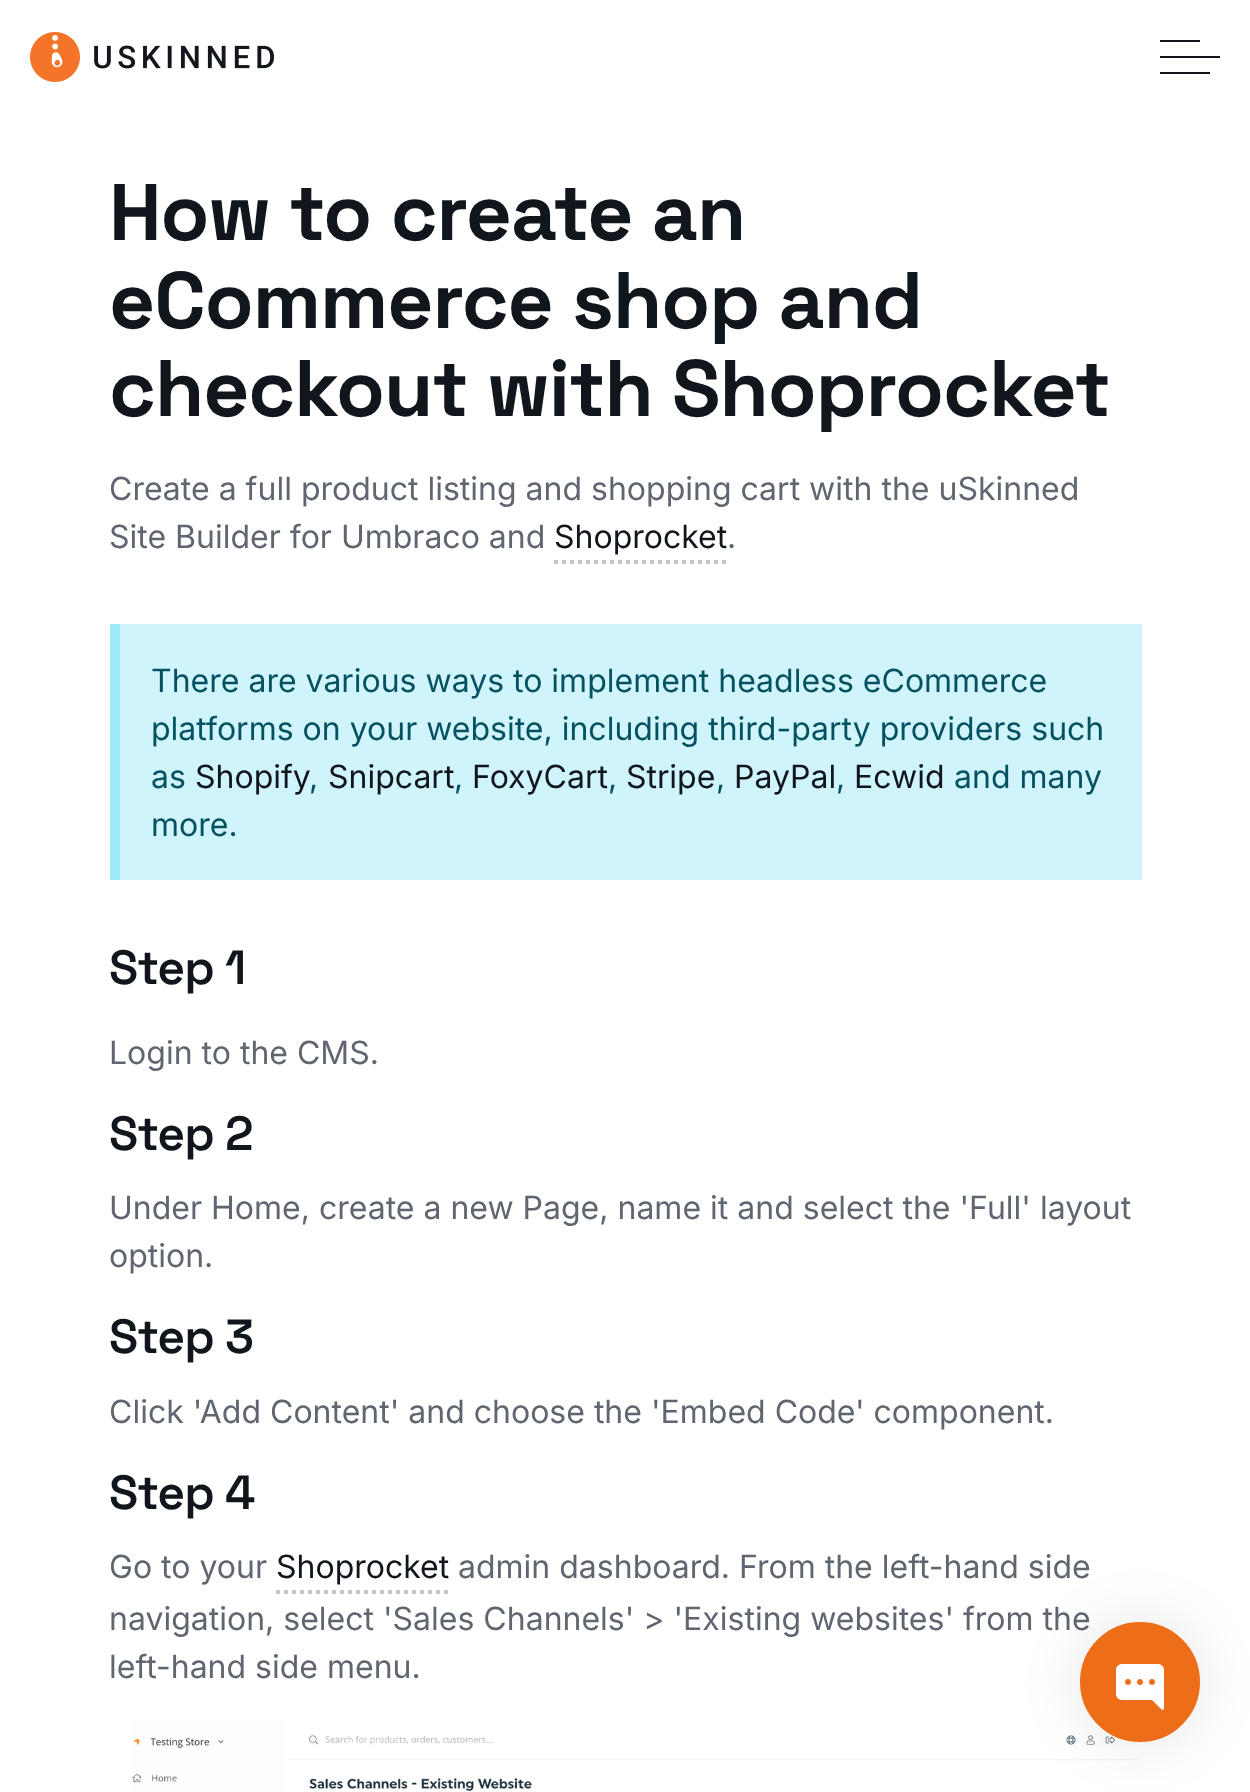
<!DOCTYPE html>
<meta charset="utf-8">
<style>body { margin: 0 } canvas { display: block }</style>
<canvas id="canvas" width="1250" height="1792"></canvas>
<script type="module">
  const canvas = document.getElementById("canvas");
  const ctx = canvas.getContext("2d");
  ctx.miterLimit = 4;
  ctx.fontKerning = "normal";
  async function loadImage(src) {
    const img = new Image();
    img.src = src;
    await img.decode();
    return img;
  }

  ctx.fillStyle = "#ffffff";
  ctx.fillRect(0, 0, 1250, 1792);
  ctx.drawImage(await loadImage("img1.png"), 30, 32, 244, 50);
  ctx.fillStyle = "#11151c";
  ctx.fillRect(1160, 56, 60, 2);
  ctx.fillRect(1160, 40, 40, 2);
  ctx.fillRect(1160, 72, 50, 2);
  ctx.letterSpacing = "-1px";
  ctx.font = "bold 80px Space Grotesk";
  ctx.fillText("How to create an", 109, 240);
  ctx.fillText("eCommerce shop and", 109, 328);
  ctx.fillText("checkout with Shoprocket", 109, 416);
  ctx.letterSpacing = "0px";
  ctx.font = "32px Inter";
  ctx.fillStyle = "#606670";
  ctx.fillText("Create a full product listing and shopping cart with the uSkinned", 109, 500);
  ctx.fillText("Site Builder for Umbraco and", 109, 548);
  ctx.beginPath();
  ctx.moveTo(554, 562);
  ctx.lineTo(728, 562);
  ctx.strokeStyle = "#c4c5c6";
  ctx.lineWidth = 4;
  ctx.setLineDash([4, 4]);
  ctx.stroke();
  ctx.fillStyle = "#11151c";
  ctx.fillText("Shoprocket", 554, 548);
  ctx.fillStyle = "#606670";
  ctx.fillText(".", 727, 548);
  ctx.fillStyle = "#cff4fc";
  ctx.fillRect(120, 624, 1022, 256);
  ctx.fillStyle = "#9eeaf9";
  ctx.fillRect(110, 624, 10, 256);
  ctx.fillStyle = "#055160";
  ctx.fillText("There are various ways to implement headless eCommerce", 151, 692);
  ctx.fillText("platforms on your website, including third-party providers such", 151, 740);
  ctx.fillText("as", 151, 788);
  ctx.fillStyle = "#11151c";
  ctx.fillText("Shopify", 195, 788);
  ctx.fillStyle = "#055160";
  ctx.fillText(",", 309, 788);
  ctx.fillStyle = "#11151c";
  ctx.fillText("Snipcart", 328, 788);
  ctx.fillStyle = "#055160";
  ctx.fillText(",", 454, 788);
  ctx.fillStyle = "#11151c";
  ctx.fillText("FoxyCart", 472, 788);
  ctx.fillStyle = "#055160";
  ctx.fillText(",", 608, 788);
  ctx.fillStyle = "#11151c";
  ctx.fillText("Stripe", 626, 788);
  ctx.fillStyle = "#055160";
  ctx.fillText(",", 716, 788);
  ctx.fillStyle = "#11151c";
  ctx.fillText("PayPal", 734, 788);
  ctx.fillStyle = "#055160";
  ctx.fillText(",", 836, 788);
  ctx.fillStyle = "#11151c";
  ctx.fillText("Ecwid", 854, 788);
  ctx.fillStyle = "#055160";
  ctx.fillText("and many", 954, 788);
  ctx.fillText("more.", 151, 836);
  ctx.letterSpacing = "-1px";
  ctx.font = "600 48px Space Grotesk";
  ctx.fillStyle = "#11151c";
  ctx.fillText("Step 1", 109, 984);
  ctx.letterSpacing = "0px";
  ctx.font = "32px Inter";
  ctx.fillStyle = "#606670";
  ctx.fillText("Login to the CMS.", 109, 1064);
  ctx.letterSpacing = "-1px";
  ctx.font = "600 48px Space Grotesk";
  ctx.fillStyle = "#11151c";
  ctx.fillText("Step 2", 109, 1150);
  ctx.letterSpacing = "0px";
  ctx.font = "32px Inter";
  ctx.fillStyle = "#606670";
  ctx.fillText("Under Home, create a new Page, name it and select the 'Full' layout", 109, 1219);
  ctx.fillText("option.", 109, 1267);
  ctx.letterSpacing = "-1px";
  ctx.font = "600 48px Space Grotesk";
  ctx.fillStyle = "#11151c";
  ctx.fillText("Step 3", 109, 1353);
  ctx.letterSpacing = "0px";
  ctx.font = "32px Inter";
  ctx.fillStyle = "#606670";
  ctx.fillText("Click 'Add Content' and choose the 'Embed Code' component.", 109, 1423);
  ctx.letterSpacing = "-1px";
  ctx.font = "600 48px Space Grotesk";
  ctx.fillStyle = "#11151c";
  ctx.fillText("Step 4", 109, 1509);
  ctx.letterSpacing = "0px";
  ctx.font = "32px Inter";
  ctx.fillStyle = "#606670";
  ctx.fillText("Go to your", 109, 1578);
  ctx.beginPath();
  ctx.moveTo(276, 1592);
  ctx.lineTo(450, 1592);
  ctx.stroke();
  ctx.fillStyle = "#11151c";
  ctx.fillText("Shoprocket", 276, 1578);
  ctx.fillStyle = "#606670";
  ctx.fillText("admin dashboard. From the left-hand side", 458, 1578);
  ctx.fillText("navigation, select 'Sales Channels' > 'Existing websites' from the", 109, 1630);
  ctx.fillText("left-hand side menu.", 109, 1678);
  ctx.drawImage(await loadImage("img2.png"), 132, 1720, 1010, 72);
  ctx.fillStyle = "rgba(0, 0, 0, 0.1)";
  ctx.filter = "blur(30px)";
  ctx.beginPath();
  ctx.roundRect(1080, 1622, 120, 120, 60);
  ctx.fill();
  ctx.filter = "none";
  ctx.fillStyle = "#ed6d18";
  ctx.beginPath();
  ctx.arc(1140, 1682, 58, 0, Math.PI * 2);
  ctx.fill();
  ctx.strokeStyle = "#ed6d18";
  ctx.setLineDash([]);
  ctx.stroke();
  ctx.drawImage(await loadImage("img3.png"), 1116, 1664, 48, 46);
</script>
